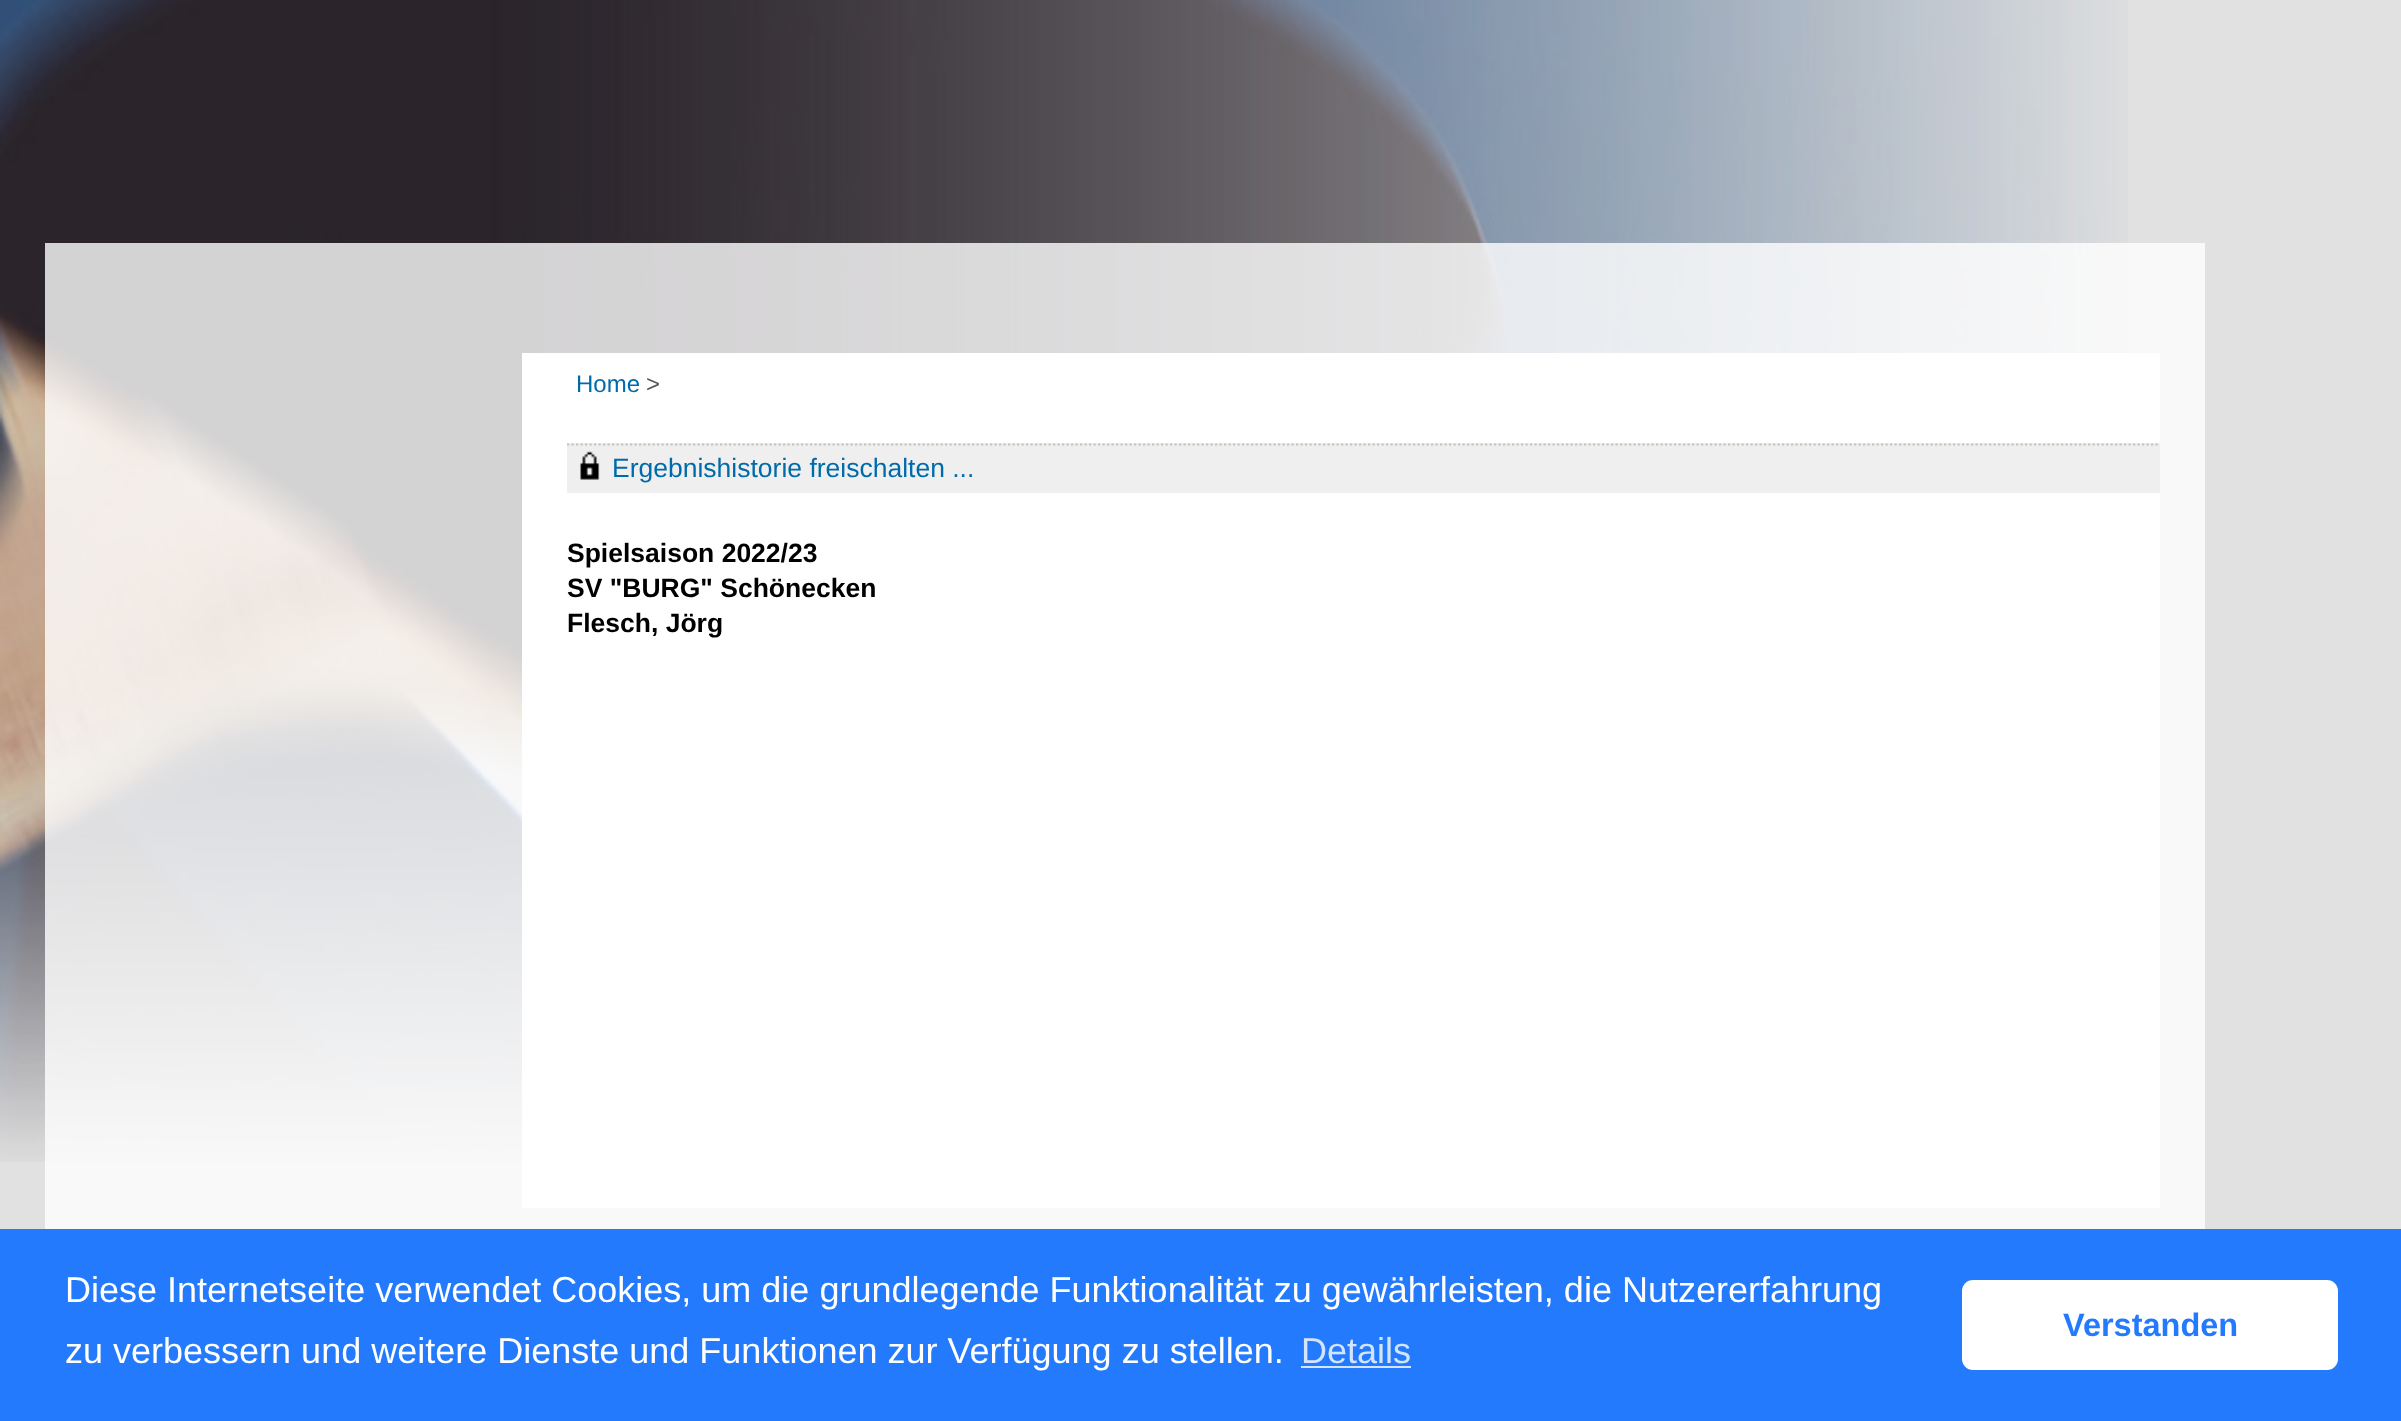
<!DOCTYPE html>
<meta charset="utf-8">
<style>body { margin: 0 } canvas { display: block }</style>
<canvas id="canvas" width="2401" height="1421"></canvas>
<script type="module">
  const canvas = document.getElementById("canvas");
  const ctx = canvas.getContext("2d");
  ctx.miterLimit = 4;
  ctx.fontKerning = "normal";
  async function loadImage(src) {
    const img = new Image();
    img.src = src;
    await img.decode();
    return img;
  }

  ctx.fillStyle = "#e1e1e1";
  ctx.fillRect(0, 0, 2401, 1421);
  ctx.drawImage(await loadImage("img1.png"), 0, 0, 2128, 1162);
  ctx.fillStyle = "rgba(255, 255, 255, 0.8)";
  ctx.fillRect(45, 243, 2160, 986);
  ctx.fillStyle = "#ffffff";
  ctx.fillRect(522, 353, 1638, 855);
  ctx.font = "24px Liberation Sans";
  ctx.fillStyle = "#006baa";
  ctx.fillText("Home", 576, 392);
  ctx.fillStyle = "#555555";
  ctx.fillText(">", 646, 392);
  ctx.fillStyle = "#efefef";
  ctx.fillRect(567, 443, 1593, 50);
  ctx.beginPath();
  ctx.moveTo(567, 444.5);
  ctx.lineTo(2160, 444.5);
  ctx.strokeStyle = "#c5c4b9";
  ctx.lineWidth = 2.2;
  ctx.setLineDash([2.25, 2.25]);
  ctx.stroke();
  ctx.drawImage(await loadImage("img2.png"), 580, 451, 20, 29);
  ctx.font = "26.5px Liberation Sans";
  ctx.fillStyle = "#006baa";
  ctx.fillText("Ergebnishistorie freischalten ...", 612, 477);
  ctx.font = "bold 26.5px Liberation Sans";
  ctx.fillStyle = "#000000";
  ctx.fillText("Spielsaison 2022/23", 567, 562);
  ctx.fillText("SV \"BURG\" Schönecken", 567, 597);
  ctx.fillText("Flesch, Jörg", 567, 632);
  ctx.fillStyle = "#237afc";
  ctx.fillRect(0, 1229, 2401, 192);
  ctx.font = "36px Liberation Sans";
  ctx.fillStyle = "#ffffff";
  ctx.fillText("Diese Internetseite verwendet Cookies, um die grundlegende Funktionalität zu gewährleisten, die Nutzererfahrung", 65, 1302);
  ctx.fillText("zu verbessern und weitere Dienste und Funktionen zur Verfügung zu stellen.", 65, 1363);
  ctx.fillStyle = "#d3e4fe";
  ctx.fillText("Details", 1301, 1363);
  ctx.fillRect(1301, 1366, 110, 2);
  ctx.fillStyle = "#ffffff";
  ctx.beginPath();
  ctx.roundRect(1962, 1280, 376, 90, 11);
  ctx.fill();
  ctx.font = "bold 32.5px Liberation Sans";
  ctx.fillStyle = "#237afc";
  ctx.fillText("Verstanden", 2063, 1336);
</script>
